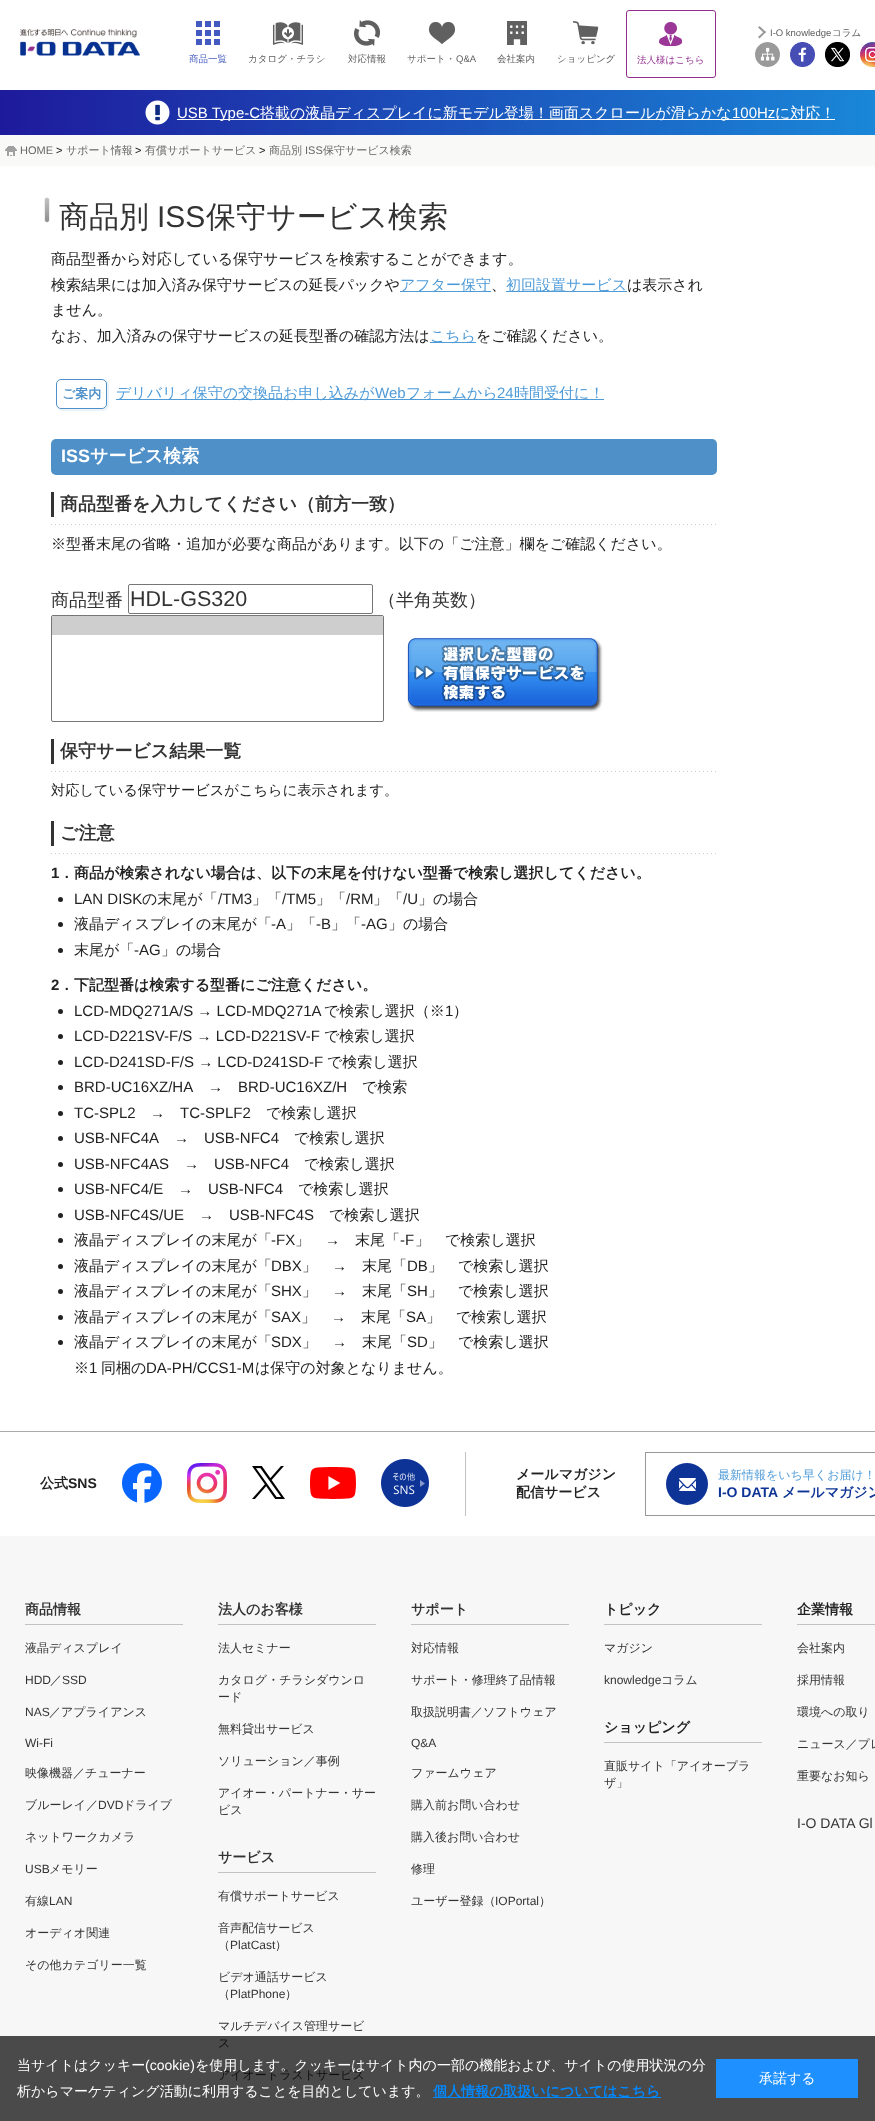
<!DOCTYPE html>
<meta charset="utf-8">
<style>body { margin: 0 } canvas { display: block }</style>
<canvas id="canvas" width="875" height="2121"></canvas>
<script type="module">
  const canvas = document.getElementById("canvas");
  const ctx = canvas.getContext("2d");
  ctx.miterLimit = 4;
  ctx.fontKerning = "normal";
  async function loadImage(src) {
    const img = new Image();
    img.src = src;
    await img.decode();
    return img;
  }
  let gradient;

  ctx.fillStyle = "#ffffff";
  ctx.fillRect(0, 0, 875, 2121);
  ctx.drawImage(await loadImage("img1.png"), 20, 29, 120, 27);
  ctx.fillStyle = "#999999";
  ctx.beginPath();
  ctx.moveTo(758, 27.5);
  ctx.lineTo(759.5, 26);
  ctx.lineTo(766, 32);
  ctx.lineTo(764.5, 33.5);
  ctx.closePath();
  ctx.fill();
  ctx.beginPath();
  ctx.moveTo(758, 37);
  ctx.lineTo(764.5, 31);
  ctx.lineTo(766, 32);
  ctx.lineTo(759.5, 38.5);
  ctx.closePath();
  ctx.fill();
  ctx.font = "9.5px Liberation Sans";
  ctx.fillStyle = "#606060";
  ctx.fillText("I-O knowledge", 770, 36);
  ctx.font = "500 9.5px WenQuanYi Zen Hei";
  ctx.fillText("コラム", 832, 36);
  ctx.drawImage(await loadImage("img2.png"), 755, 42, 25, 25);
  ctx.drawImage(await loadImage("img3.png"), 790, 42, 25, 25);
  ctx.drawImage(await loadImage("img4.png"), 825, 42, 25, 25);
  ctx.drawImage(await loadImage("img5.png"), 860, 42, 15, 25);
  ctx.drawImage(await loadImage("img6.png"), 196, 21, 24, 24);
  ctx.fillStyle = "#435ac0";
  ctx.fillText("商品一覧", 189, 62);
  ctx.drawImage(await loadImage("img7.png"), 273, 22, 30, 23);
  ctx.fillStyle = "#606060";
  ctx.fillText("カタログ・チラシ", 248, 62);
  ctx.drawImage(await loadImage("img8.png"), 354, 20, 26, 26);
  ctx.fillText("対応情報", 348, 62);
  ctx.drawImage(await loadImage("img9.png"), 429, 22, 26, 22);
  ctx.fillText("サポート・", 407, 62);
  ctx.font = "9.5px Liberation Sans";
  ctx.fillText("Q&A", 456, 62);
  ctx.drawImage(await loadImage("img10.png"), 507, 21, 20, 24);
  ctx.font = "500 9.5px WenQuanYi Zen Hei";
  ctx.fillText("会社案内", 497, 62);
  ctx.drawImage(await loadImage("img11.png"), 573, 21, 26, 24);
  ctx.fillText("ショッピング", 557, 62);
  ctx.beginPath();
  ctx.roundRect(626.5, 10.5, 89, 67, 2.5);
  ctx.strokeStyle = "#922e8e";
  ctx.stroke();
  ctx.drawImage(await loadImage("img12.png"), 659, 22, 23, 25);
  ctx.fillStyle = "#922e8e";
  ctx.fillText("法人様はこちら", 637, 63);
  gradient = ctx.createLinearGradient(0, 113, 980, 112);
  gradient.addColorStop(0, "#1e1a9c");
  gradient.addColorStop(1, "#1994df");
  ctx.fillStyle = gradient;
  ctx.fillRect(0, 90, 875, 45);
  ctx.drawImage(await loadImage("img13.png"), 145, 100, 25, 25);
  ctx.fillStyle = "#ffffff";
  ctx.fillRect(177, 119, 658, 1);
  ctx.font = "15px Liberation Sans";
  ctx.fillText("USB Type-C", 177, 118);
  ctx.font = "500 15px WenQuanYi Zen Hei";
  ctx.fillText("搭載の液晶ディスプレイに新モデル登場！画面スクロールが滑らかな", 260, 118);
  ctx.font = "15px Liberation Sans";
  ctx.fillText("100Hz", 732, 118);
  ctx.font = "500 15px WenQuanYi Zen Hei";
  ctx.fillText("に対応！", 775, 118);
  ctx.fillStyle = "#f9f9f8";
  ctx.fillRect(0, 135, 875, 31);
  ctx.drawImage(await loadImage("img14.png"), 5, 146, 12, 10);
  ctx.font = "11px Liberation Sans";
  ctx.fillStyle = "#666666";
  ctx.fillText("HOME", 20, 154);
  ctx.fillStyle = "#222222";
  ctx.fillText(">", 56, 154);
  ctx.font = "500 11px WenQuanYi Zen Hei";
  ctx.fillStyle = "#666666";
  ctx.fillText("サポート情報", 66, 154);
  ctx.font = "11px Liberation Sans";
  ctx.fillStyle = "#222222";
  ctx.fillText(">", 135, 154);
  ctx.font = "500 11px WenQuanYi Zen Hei";
  ctx.fillStyle = "#666666";
  ctx.fillText("有償サポートサービス", 145, 154);
  ctx.font = "11px Liberation Sans";
  ctx.fillStyle = "#222222";
  ctx.fillText(">", 259, 154);
  ctx.font = "500 11px WenQuanYi Zen Hei";
  ctx.fillStyle = "#666666";
  ctx.fillText("商品別", 269, 154);
  ctx.font = "11px Liberation Sans";
  ctx.fillText("ISS", 305, 154);
  ctx.font = "500 11px WenQuanYi Zen Hei";
  ctx.fillText("保守サービス検索", 323, 154);
  ctx.drawImage(await loadImage("img15.png"), 44, 197, 6, 26);
  ctx.font = "500 30px WenQuanYi Zen Hei";
  ctx.fillStyle = "#333333";
  ctx.fillText("商品別", 59, 227);
  ctx.font = "30px Liberation Sans";
  ctx.fillText("ISS", 157, 227);
  ctx.font = "500 30px WenQuanYi Zen Hei";
  ctx.fillText("保守サービス検索", 206, 227);
  ctx.font = "500 15px WenQuanYi Zen Hei";
  ctx.fillStyle = "#222222";
  ctx.fillText("商品型番から対応している保守サービスを検索することができます。", 51, 264);
  ctx.fillText("検索結果には加入済み保守サービスの延長パックや", 51, 290);
  ctx.fillStyle = "#4f9bd8";
  ctx.fillRect(400, 291, 91, 1);
  ctx.fillText("アフター保守", 400, 290);
  ctx.fillStyle = "#222222";
  ctx.fillText("、", 491, 290);
  ctx.fillStyle = "#4f9bd8";
  ctx.fillRect(506, 291, 121, 1);
  ctx.fillText("初回設置サービス", 506, 290);
  ctx.fillStyle = "#222222";
  ctx.fillText("は表示され", 627, 290);
  ctx.fillText("ません。", 51, 315);
  ctx.fillText("なお、加入済みの保守サービスの延長型番の確認方法は", 51, 341);
  ctx.fillStyle = "#4f9bd8";
  ctx.fillRect(430, 342, 46, 1);
  ctx.fillText("こちら", 430, 341);
  ctx.fillStyle = "#222222";
  ctx.fillText("をご確認ください。", 476, 341);
  ctx.save();
  ctx.beginPath();
  ctx.moveTo(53, 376);
  ctx.lineTo(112, 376);
  ctx.lineTo(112, 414);
  ctx.lineTo(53, 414);
  ctx.closePath();
  ctx.moveTo(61, 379);
  ctx.lineTo(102, 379);
  ctx.bezierCurveTo(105, 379, 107, 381, 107, 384);
  ctx.lineTo(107, 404);
  ctx.bezierCurveTo(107, 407, 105, 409, 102, 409);
  ctx.lineTo(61, 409);
  ctx.bezierCurveTo(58, 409, 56, 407, 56, 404);
  ctx.lineTo(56, 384);
  ctx.bezierCurveTo(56, 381, 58, 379, 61, 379);
  ctx.closePath();
  ctx.clip("evenodd");
  ctx.fillStyle = "#edf4f9";
  ctx.filter = "blur(0.5px)";
  ctx.beginPath();
  ctx.roundRect(56, 379, 53, 32, 6);
  ctx.fill();
  ctx.filter = "none";
  ctx.restore();
  ctx.beginPath();
  ctx.roundRect(56.5, 379.5, 50, 29, 4.5);
  ctx.strokeStyle = "#4f90c9";
  ctx.stroke();
  ctx.font = "bold 13px WenQuanYi Zen Hei";
  ctx.fillStyle = "#4f90c9";
  ctx.fillText("ご案内", 62, 398);
  ctx.fillStyle = "#4f9bd8";
  ctx.fillRect(116, 399, 488, 1);
  ctx.font = "500 15px WenQuanYi Zen Hei";
  ctx.fillText("デリバリィ保守の交換品お申し込みが", 116, 398);
  ctx.font = "15px Liberation Sans";
  ctx.fillText("Web", 375, 398);
  ctx.font = "500 15px WenQuanYi Zen Hei";
  ctx.fillText("フォームから", 406, 398);
  ctx.font = "15px Liberation Sans";
  ctx.fillText("24", 497, 398);
  ctx.font = "500 15px WenQuanYi Zen Hei";
  ctx.fillText("時間受付に！", 514, 398);
  ctx.fillStyle = "#4f90c9";
  ctx.beginPath();
  ctx.roundRect(51, 439, 666, 36, 5);
  ctx.fill();
  ctx.font = "bold 18px Liberation Sans";
  ctx.fillStyle = "#ffffff";
  ctx.fillText("ISS", 61, 462);
  ctx.font = "bold 18px WenQuanYi Zen Hei";
  ctx.fillText("サービス検索", 90, 462);
  ctx.drawImage(await loadImage("img16.png"), 51, 524, 665, 1);
  ctx.fillStyle = "#333333";
  ctx.fillRect(51, 492, 3, 25);
  ctx.fillText("商品型番を入力してください（前方一致）", 60, 510);
  ctx.font = "500 15px WenQuanYi Zen Hei";
  ctx.fillStyle = "#222222";
  ctx.fillText("※型番末尾の省略・追加が必要な商品があります。以下の「ご注意」欄をご確認ください。", 51, 549);
  ctx.font = "500 18px WenQuanYi Zen Hei";
  ctx.fillStyle = "#333333";
  ctx.fillText("商品型番", 51, 606);
  ctx.beginPath();
  ctx.roundRect(128.5, 584.5, 244, 29, 1.5);
  ctx.strokeStyle = "#767676";
  ctx.stroke();
  ctx.font = "21.5px Liberation Sans";
  ctx.fillText("HDL-GS320", 130, 606);
  ctx.font = "500 18px WenQuanYi Zen Hei";
  ctx.fillText("（半角英数）", 378, 606);
  ctx.beginPath();
  ctx.roundRect(51.5, 615.5, 332, 106, 1.5);
  ctx.stroke();
  ctx.fillStyle = "#cecece";
  ctx.beginPath();
  ctx.roundRect(52, 616, 331, 19, [1, 1, 0, 0]);
  ctx.fill();
  ctx.drawImage(await loadImage("img17.png"), 407, 638, 196, 74);
  ctx.drawImage(await loadImage("img16.png"), 51, 771, 665, 1);
  ctx.fillStyle = "#333333";
  ctx.fillRect(51, 739, 3, 25);
  ctx.font = "bold 18px WenQuanYi Zen Hei";
  ctx.fillText("保守サービス結果一覧", 60, 757);
  ctx.font = "500 14.25px WenQuanYi Zen Hei";
  ctx.fillStyle = "#222222";
  ctx.fillText("対応している保守サービスがこちらに表示されます。", 51, 795);
  ctx.drawImage(await loadImage("img16.png"), 51, 853, 665, 1);
  ctx.fillStyle = "#333333";
  ctx.fillRect(51, 821, 3, 25);
  ctx.font = "bold 18px WenQuanYi Zen Hei";
  ctx.fillText("ご注意", 60, 839);
  ctx.font = "bold 15px Liberation Sans";
  ctx.fillStyle = "#222222";
  ctx.fillText("1", 51, 878);
  ctx.font = "bold 15px WenQuanYi Zen Hei";
  ctx.fillText("．商品が検索されない場合は、以下の末尾を付けない型番で検索し選択してください。", 59, 878);
  ctx.beginPath();
  ctx.arc(60.5, 899.5, 2.5, 0, Math.PI * 2);
  ctx.fill();
  ctx.font = "15px Liberation Sans";
  ctx.fillText("LAN DISK", 74, 904);
  ctx.font = "500 15px WenQuanYi Zen Hei";
  ctx.fillText("の末尾が「", 142, 904);
  ctx.font = "15px Liberation Sans";
  ctx.fillText("/TM3", 218, 904);
  ctx.font = "500 15px WenQuanYi Zen Hei";
  ctx.fillText("」「", 252, 904);
  ctx.font = "15px Liberation Sans";
  ctx.fillText("/TM5", 282, 904);
  ctx.font = "500 15px WenQuanYi Zen Hei";
  ctx.fillText("」「", 316, 904);
  ctx.font = "15px Liberation Sans";
  ctx.fillText("/RM", 346, 904);
  ctx.font = "500 15px WenQuanYi Zen Hei";
  ctx.fillText("」「", 373, 904);
  ctx.font = "15px Liberation Sans";
  ctx.fillText("/U", 403, 904);
  ctx.font = "500 15px WenQuanYi Zen Hei";
  ctx.fillText("」の場合", 418, 904);
  ctx.beginPath();
  ctx.arc(60.5, 924.5, 2.5, 0, Math.PI * 2);
  ctx.fill();
  ctx.fillText("液晶ディスプレイの末尾が「", 74, 929);
  ctx.font = "15px Liberation Sans";
  ctx.fillText("-A", 271, 929);
  ctx.font = "500 15px WenQuanYi Zen Hei";
  ctx.fillText("」「", 286, 929);
  ctx.font = "15px Liberation Sans";
  ctx.fillText("-B", 316, 929);
  ctx.font = "500 15px WenQuanYi Zen Hei";
  ctx.fillText("」「", 331, 929);
  ctx.font = "15px Liberation Sans";
  ctx.fillText("-AG", 361, 929);
  ctx.font = "500 15px WenQuanYi Zen Hei";
  ctx.fillText("」の場合", 388, 929);
  ctx.beginPath();
  ctx.arc(60.5, 950.5, 2.5, 0, Math.PI * 2);
  ctx.fill();
  ctx.fillText("末尾が「", 74, 955);
  ctx.font = "15px Liberation Sans";
  ctx.fillText("-AG", 134, 955);
  ctx.font = "500 15px WenQuanYi Zen Hei";
  ctx.fillText("」の場合", 161, 955);
  ctx.font = "bold 15px Liberation Sans";
  ctx.fillText("2", 51, 990);
  ctx.font = "bold 15px WenQuanYi Zen Hei";
  ctx.fillText("．下記型番は検索する型番にご注意ください。", 59, 990);
  ctx.beginPath();
  ctx.arc(60.5, 1011.5, 2.5, 0, Math.PI * 2);
  ctx.fill();
  ctx.font = "15px Liberation Sans";
  ctx.fillText("LCD-MDQ271A/S → LCD-MDQ271A", 74, 1016);
  ctx.font = "500 15px WenQuanYi Zen Hei";
  ctx.fillText("で検索し選択（※", 324, 1016);
  ctx.font = "15px Liberation Sans";
  ctx.fillText("1", 445, 1016);
  ctx.font = "500 15px WenQuanYi Zen Hei";
  ctx.fillText("）", 453, 1016);
  ctx.beginPath();
  ctx.arc(60.5, 1036.5, 2.5, 0, Math.PI * 2);
  ctx.fill();
  ctx.font = "15px Liberation Sans";
  ctx.fillText("LCD-D221SV-F/S → LCD-D221SV-F", 74, 1041);
  ctx.font = "500 15px WenQuanYi Zen Hei";
  ctx.fillText("で検索し選択", 324, 1041);
  ctx.beginPath();
  ctx.arc(60.5, 1062.5, 2.5, 0, Math.PI * 2);
  ctx.fill();
  ctx.font = "15px Liberation Sans";
  ctx.fillText("LCD-D241SD-F/S → LCD-D241SD-F", 74, 1067);
  ctx.font = "500 15px WenQuanYi Zen Hei";
  ctx.fillText("で検索し選択", 327, 1067);
  ctx.beginPath();
  ctx.arc(60.5, 1087.5, 2.5, 0, Math.PI * 2);
  ctx.fill();
  ctx.font = "15px Liberation Sans";
  ctx.fillText("BRD-UC16XZ/HA", 74, 1092);
  ctx.fillText("→", 208, 1092);
  ctx.fillText("BRD-UC16XZ/H", 238, 1092);
  ctx.font = "500 15px WenQuanYi Zen Hei";
  ctx.fillText("で検索", 362, 1092);
  ctx.beginPath();
  ctx.arc(60.5, 1113.5, 2.5, 0, Math.PI * 2);
  ctx.fill();
  ctx.font = "15px Liberation Sans";
  ctx.fillText("TC-SPL2", 74, 1118);
  ctx.fillText("→", 150, 1118);
  ctx.fillText("TC-SPLF2", 180, 1118);
  ctx.font = "500 15px WenQuanYi Zen Hei";
  ctx.fillText("で検索し選択", 266, 1118);
  ctx.beginPath();
  ctx.arc(60.5, 1138.5, 2.5, 0, Math.PI * 2);
  ctx.fill();
  ctx.font = "15px Liberation Sans";
  ctx.fillText("USB-NFC4A", 74, 1143);
  ctx.fillText("→", 174, 1143);
  ctx.fillText("USB-NFC4", 204, 1143);
  ctx.font = "500 15px WenQuanYi Zen Hei";
  ctx.fillText("で検索し選択", 294, 1143);
  ctx.beginPath();
  ctx.arc(60.5, 1164.5, 2.5, 0, Math.PI * 2);
  ctx.fill();
  ctx.font = "15px Liberation Sans";
  ctx.fillText("USB-NFC4AS", 74, 1169);
  ctx.fillText("→", 184, 1169);
  ctx.fillText("USB-NFC4", 214, 1169);
  ctx.font = "500 15px WenQuanYi Zen Hei";
  ctx.fillText("で検索し選択", 304, 1169);
  ctx.beginPath();
  ctx.arc(60.5, 1189.5, 2.5, 0, Math.PI * 2);
  ctx.fill();
  ctx.font = "15px Liberation Sans";
  ctx.fillText("USB-NFC4/E", 74, 1194);
  ctx.fillText("→", 178, 1194);
  ctx.fillText("USB-NFC4", 208, 1194);
  ctx.font = "500 15px WenQuanYi Zen Hei";
  ctx.fillText("で検索し選択", 298, 1194);
  ctx.beginPath();
  ctx.arc(60.5, 1215.5, 2.5, 0, Math.PI * 2);
  ctx.fill();
  ctx.font = "15px Liberation Sans";
  ctx.fillText("USB-NFC4S/UE", 74, 1220);
  ctx.fillText("→", 199, 1220);
  ctx.fillText("USB-NFC4S", 229, 1220);
  ctx.font = "500 15px WenQuanYi Zen Hei";
  ctx.fillText("で検索し選択", 329, 1220);
  ctx.beginPath();
  ctx.arc(60.5, 1240.5, 2.5, 0, Math.PI * 2);
  ctx.fill();
  ctx.fillText("液晶ディスプレイの末尾が「", 74, 1245);
  ctx.font = "15px Liberation Sans";
  ctx.fillText("-FX", 271, 1245);
  ctx.font = "500 15px WenQuanYi Zen Hei";
  ctx.fillText("」", 295, 1245);
  ctx.font = "15px Liberation Sans";
  ctx.fillText("→", 325, 1245);
  ctx.font = "500 15px WenQuanYi Zen Hei";
  ctx.fillText("末尾「", 355, 1245);
  ctx.font = "15px Liberation Sans";
  ctx.fillText("-F", 400, 1245);
  ctx.font = "500 15px WenQuanYi Zen Hei";
  ctx.fillText("」　で検索し選択", 415, 1245);
  ctx.beginPath();
  ctx.arc(60.5, 1266.5, 2.5, 0, Math.PI * 2);
  ctx.fill();
  ctx.fillText("液晶ディスプレイの末尾が「", 74, 1271);
  ctx.font = "15px Liberation Sans";
  ctx.fillText("DBX", 271, 1271);
  ctx.font = "500 15px WenQuanYi Zen Hei";
  ctx.fillText("」", 302, 1271);
  ctx.font = "15px Liberation Sans";
  ctx.fillText("→", 332, 1271);
  ctx.font = "500 15px WenQuanYi Zen Hei";
  ctx.fillText("末尾「", 362, 1271);
  ctx.font = "15px Liberation Sans";
  ctx.fillText("DB", 407, 1271);
  ctx.font = "500 15px WenQuanYi Zen Hei";
  ctx.fillText("」　で検索し選択", 428, 1271);
  ctx.beginPath();
  ctx.arc(60.5, 1291.5, 2.5, 0, Math.PI * 2);
  ctx.fill();
  ctx.fillText("液晶ディスプレイの末尾が「", 74, 1296);
  ctx.font = "15px Liberation Sans";
  ctx.fillText("SHX", 271, 1296);
  ctx.font = "500 15px WenQuanYi Zen Hei";
  ctx.fillText("」", 302, 1296);
  ctx.font = "15px Liberation Sans";
  ctx.fillText("→", 332, 1296);
  ctx.font = "500 15px WenQuanYi Zen Hei";
  ctx.fillText("末尾「", 362, 1296);
  ctx.font = "15px Liberation Sans";
  ctx.fillText("SH", 407, 1296);
  ctx.font = "500 15px WenQuanYi Zen Hei";
  ctx.fillText("」　で検索し選択", 428, 1296);
  ctx.beginPath();
  ctx.arc(60.5, 1317.5, 2.5, 0, Math.PI * 2);
  ctx.fill();
  ctx.fillText("液晶ディスプレイの末尾が「", 74, 1322);
  ctx.font = "15px Liberation Sans";
  ctx.fillText("SAX", 271, 1322);
  ctx.font = "500 15px WenQuanYi Zen Hei";
  ctx.fillText("」", 301, 1322);
  ctx.font = "15px Liberation Sans";
  ctx.fillText("→", 331, 1322);
  ctx.font = "500 15px WenQuanYi Zen Hei";
  ctx.fillText("末尾「", 361, 1322);
  ctx.font = "15px Liberation Sans";
  ctx.fillText("SA", 406, 1322);
  ctx.font = "500 15px WenQuanYi Zen Hei";
  ctx.fillText("」　で検索し選択", 426, 1322);
  ctx.beginPath();
  ctx.arc(60.5, 1342.5, 2.5, 0, Math.PI * 2);
  ctx.fill();
  ctx.fillText("液晶ディスプレイの末尾が「", 74, 1347);
  ctx.font = "15px Liberation Sans";
  ctx.fillText("SDX", 271, 1347);
  ctx.font = "500 15px WenQuanYi Zen Hei";
  ctx.fillText("」", 302, 1347);
  ctx.font = "15px Liberation Sans";
  ctx.fillText("→", 332, 1347);
  ctx.font = "500 15px WenQuanYi Zen Hei";
  ctx.fillText("末尾「", 362, 1347);
  ctx.font = "15px Liberation Sans";
  ctx.fillText("SD", 407, 1347);
  ctx.font = "500 15px WenQuanYi Zen Hei";
  ctx.fillText("」　で検索し選択", 428, 1347);
  ctx.fillText("※", 74, 1373);
  ctx.font = "15px Liberation Sans";
  ctx.fillText("1", 89, 1373);
  ctx.font = "500 15px WenQuanYi Zen Hei";
  ctx.fillText("同梱の", 101, 1373);
  ctx.font = "15px Liberation Sans";
  ctx.fillText("DA-PH/CCS1-M", 146, 1373);
  ctx.font = "500 15px WenQuanYi Zen Hei";
  ctx.fillText("は保守の対象となりません。", 255, 1373);
  ctx.fillStyle = "#a9a9a9";
  ctx.fillRect(0, 1431, 875, 1);
  ctx.font = "bold 14px WenQuanYi Zen Hei";
  ctx.fillStyle = "#222222";
  ctx.fillText("公式", 40, 1488);
  ctx.font = "bold 14px Liberation Sans";
  ctx.fillText("SNS", 68, 1488);
  ctx.drawImage(await loadImage("img18.png"), 122, 1463, 40, 40);
  ctx.drawImage(await loadImage("img19.png"), 187, 1463, 40, 40);
  ctx.drawImage(await loadImage("img20.png"), 252, 1466, 33, 33);
  ctx.drawImage(await loadImage("img21.png"), 310, 1467, 46, 32);
  ctx.drawImage(await loadImage("img22.png"), 381, 1459, 48, 48);
  ctx.fillStyle = "#c3c3c3";
  ctx.fillRect(465, 1452, 1, 64);
  ctx.font = "bold 14px WenQuanYi Zen Hei";
  ctx.fillStyle = "#222222";
  ctx.fillText("メールマガジン", 516, 1479);
  ctx.fillText("配信サービス", 516, 1497);
  ctx.strokeStyle = "#999999";
  ctx.strokeRect(645.5, 1452.5, 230, 63);
  ctx.drawImage(await loadImage("img23.png"), 666, 1463, 42, 42);
  ctx.font = "500 12px WenQuanYi Zen Hei";
  ctx.fillStyle = "#4f9bd8";
  ctx.fillText("最新情報をいち早くお届け！", 718, 1479);
  ctx.font = "bold 14px Liberation Sans";
  ctx.fillStyle = "#0d3396";
  ctx.fillText("I-O DATA", 718, 1497);
  ctx.font = "bold 14px WenQuanYi Zen Hei";
  ctx.fillText("メールマガジン", 782, 1497);
  ctx.fillStyle = "#f7f7f7";
  ctx.fillRect(0, 1536, 875, 500);
  ctx.fillStyle = "#4a4a4a";
  ctx.fillRect(0, 2036, 875, 85);
  ctx.fillStyle = "#c3c3c3";
  ctx.fillRect(25, 1624, 158, 1);
  ctx.fillStyle = "#333333";
  ctx.fillText("商品情報", 25, 1614);
  ctx.font = "500 12px WenQuanYi Zen Hei";
  ctx.fillText("液晶ディスプレイ", 25, 1652);
  ctx.font = "12px Liberation Sans";
  ctx.fillText("HDD", 25, 1684);
  ctx.font = "500 12px WenQuanYi Zen Hei";
  ctx.fillText("／", 50, 1684);
  ctx.font = "12px Liberation Sans";
  ctx.fillText("SSD", 62, 1684);
  ctx.fillText("NAS", 25, 1716);
  ctx.font = "500 12px WenQuanYi Zen Hei";
  ctx.fillText("／アプライアンス", 49, 1716);
  ctx.font = "12px Liberation Sans";
  ctx.fillText("Wi-Fi", 25, 1747);
  ctx.font = "500 12px WenQuanYi Zen Hei";
  ctx.fillText("映像機器／チューナー", 25, 1777);
  ctx.fillText("ブルーレイ／", 25, 1809);
  ctx.font = "12px Liberation Sans";
  ctx.fillText("DVD", 98, 1809);
  ctx.font = "500 12px WenQuanYi Zen Hei";
  ctx.fillText("ドライブ", 123, 1809);
  ctx.fillText("ネットワークカメラ", 25, 1841);
  ctx.font = "12px Liberation Sans";
  ctx.fillText("USB", 25, 1873);
  ctx.font = "500 12px WenQuanYi Zen Hei";
  ctx.fillText("メモリー", 49, 1873);
  ctx.fillText("有線", 25, 1905);
  ctx.font = "12px Liberation Sans";
  ctx.fillText("LAN", 49, 1905);
  ctx.font = "500 12px WenQuanYi Zen Hei";
  ctx.fillText("オーディオ関連", 25, 1937);
  ctx.fillText("その他カテゴリー一覧", 25, 1969);
  ctx.fillStyle = "#c3c3c3";
  ctx.fillRect(218, 1624, 158, 1);
  ctx.font = "bold 14px WenQuanYi Zen Hei";
  ctx.fillStyle = "#333333";
  ctx.fillText("法人のお客様", 218, 1614);
  ctx.font = "500 12px WenQuanYi Zen Hei";
  ctx.fillText("法人セミナー", 218, 1652);
  ctx.fillText("カタログ・チラシダウンロ", 218, 1684);
  ctx.fillText("ード", 218, 1701);
  ctx.fillText("無料貸出サービス", 218, 1733);
  ctx.fillText("ソリューション／事例", 218, 1765);
  ctx.fillText("アイオー・パートナー・サー", 218, 1797);
  ctx.fillText("ビス", 218, 1814);
  ctx.fillStyle = "#c3c3c3";
  ctx.fillRect(218, 1872, 158, 1);
  ctx.font = "bold 14px WenQuanYi Zen Hei";
  ctx.fillStyle = "#333333";
  ctx.fillText("サービス", 218, 1862);
  ctx.font = "500 12px WenQuanYi Zen Hei";
  ctx.fillText("有償サポートサービス", 218, 1900);
  ctx.fillText("音声配信サービス", 218, 1932);
  ctx.fillText("（", 218, 1949);
  ctx.font = "12px Liberation Sans";
  ctx.fillText("PlatCast", 230, 1949);
  ctx.font = "500 12px WenQuanYi Zen Hei";
  ctx.fillText("）", 275, 1949);
  ctx.fillText("ビデオ通話サービス", 218, 1981);
  ctx.fillText("（", 218, 1998);
  ctx.font = "12px Liberation Sans";
  ctx.fillText("PlatPhone", 230, 1998);
  ctx.font = "500 12px WenQuanYi Zen Hei";
  ctx.fillText("）", 285, 1998);
  ctx.fillText("マルチデバイス管理サービ", 218, 2030);
  ctx.fillStyle = "#0f0f0f";
  ctx.fillText("ス", 218, 2047);
  ctx.fillText("アイオートラストサービス", 218, 2079);
  ctx.fillStyle = "#c3c3c3";
  ctx.fillRect(411, 1624, 158, 1);
  ctx.font = "bold 14px WenQuanYi Zen Hei";
  ctx.fillStyle = "#333333";
  ctx.fillText("サポート", 411, 1614);
  ctx.font = "500 12px WenQuanYi Zen Hei";
  ctx.fillText("対応情報", 411, 1652);
  ctx.fillText("サポート・修理終了品情報", 411, 1684);
  ctx.fillText("取扱説明書／ソフトウェア", 411, 1716);
  ctx.font = "12px Liberation Sans";
  ctx.fillText("Q&A", 411, 1747);
  ctx.font = "500 12px WenQuanYi Zen Hei";
  ctx.fillText("ファームウェア", 411, 1777);
  ctx.fillText("購入前お問い合わせ", 411, 1809);
  ctx.fillText("購入後お問い合わせ", 411, 1841);
  ctx.fillText("修理", 411, 1873);
  ctx.fillText("ユーザー登録（", 411, 1905);
  ctx.font = "12px Liberation Sans";
  ctx.fillText("IOPortal", 495, 1905);
  ctx.font = "500 12px WenQuanYi Zen Hei";
  ctx.fillText("）", 539, 1905);
  ctx.fillStyle = "#c3c3c3";
  ctx.fillRect(604, 1624, 158, 1);
  ctx.font = "bold 14px WenQuanYi Zen Hei";
  ctx.fillStyle = "#222222";
  ctx.fillText("トピック", 604, 1614);
  ctx.font = "500 12px WenQuanYi Zen Hei";
  ctx.fillStyle = "#333333";
  ctx.fillText("マガジン", 604, 1652);
  ctx.font = "12px Liberation Sans";
  ctx.fillText("knowledge", 604, 1684);
  ctx.font = "500 12px WenQuanYi Zen Hei";
  ctx.fillText("コラム", 661, 1684);
  ctx.fillStyle = "#c3c3c3";
  ctx.fillRect(604, 1742, 158, 1);
  ctx.font = "bold 14px WenQuanYi Zen Hei";
  ctx.fillStyle = "#222222";
  ctx.fillText("ショッピング", 604, 1732);
  ctx.font = "500 12px WenQuanYi Zen Hei";
  ctx.fillStyle = "#333333";
  ctx.fillText("直販サイト「アイオープラ", 604, 1770);
  ctx.fillText("ザ」", 604, 1787);
  ctx.fillStyle = "#c3c3c3";
  ctx.fillRect(797, 1624, 78, 1);
  ctx.font = "bold 14px WenQuanYi Zen Hei";
  ctx.fillStyle = "#222222";
  ctx.fillText("企業情報", 797, 1614);
  ctx.font = "500 12px WenQuanYi Zen Hei";
  ctx.fillStyle = "#333333";
  ctx.fillText("会社案内", 797, 1652);
  ctx.fillText("採用情報", 797, 1684);
  ctx.fillText("環境への取り", 797, 1716);
  ctx.fillText("ニュース／プレ", 797, 1748);
  ctx.fillText("重要なお知ら", 797, 1780);
  ctx.font = "14px Liberation Sans";
  ctx.fillText("I-O DATA Gl", 797, 1828);
  ctx.font = "500 14px WenQuanYi Zen Hei";
  ctx.fillStyle = "#ffffff";
  ctx.fillText("当サイトはクッキー", 17, 2070);
  ctx.font = "14px Liberation Sans";
  ctx.fillText("(cookie)", 145, 2070);
  ctx.font = "500 14px WenQuanYi Zen Hei";
  ctx.fillText("を使用します。クッキーはサイト内の一部の機能および、サイトの使用状況の分", 195, 2070);
  ctx.fillText("析からマーケティング活動に利用することを目的としています。", 17, 2096);
  ctx.fillStyle = "#0088ff";
  ctx.fillRect(433, 2097, 228, 1);
  ctx.font = "bold 14px WenQuanYi Zen Hei";
  ctx.fillText("個人情報の取扱いについてはこちら", 433, 2096);
  ctx.fillStyle = "#1e90ff";
  ctx.fillRect(716, 2059, 142, 39);
  ctx.font = "500 14px WenQuanYi Zen Hei";
  ctx.fillStyle = "#ffffff";
  ctx.fillText("承諾する", 759, 2083);
</script>
